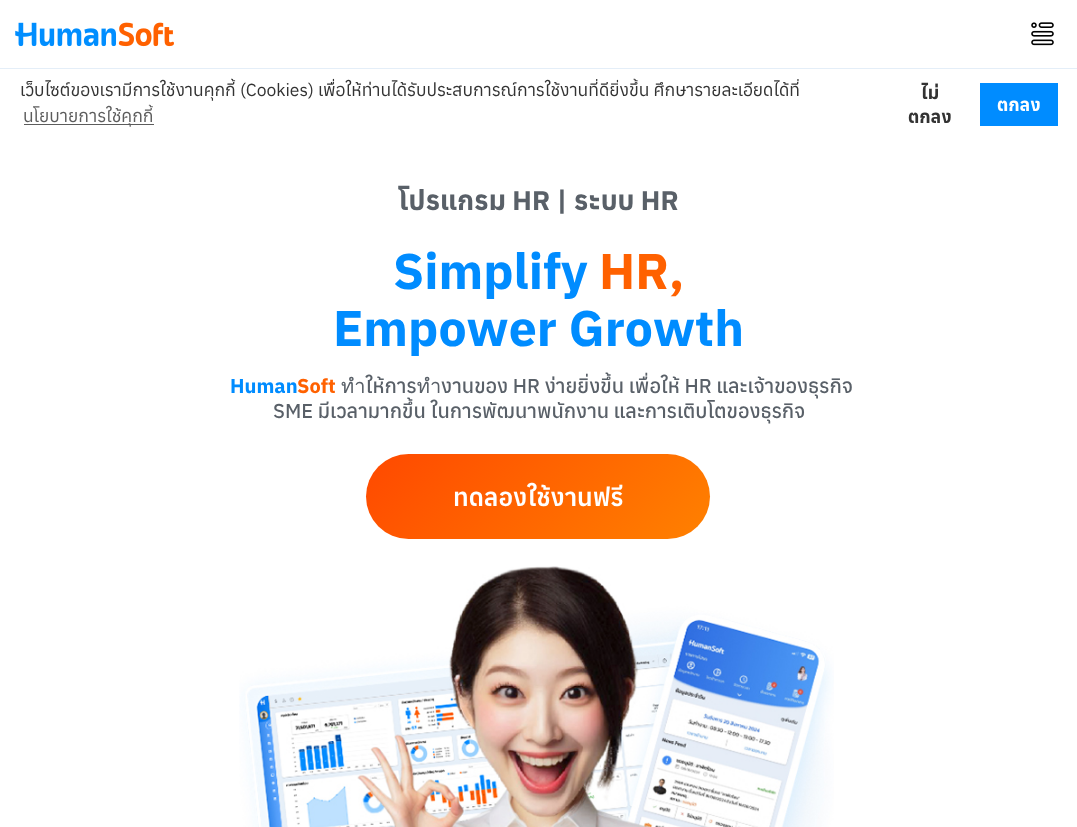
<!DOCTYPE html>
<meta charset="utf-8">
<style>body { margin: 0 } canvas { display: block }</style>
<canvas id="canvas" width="1077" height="827"></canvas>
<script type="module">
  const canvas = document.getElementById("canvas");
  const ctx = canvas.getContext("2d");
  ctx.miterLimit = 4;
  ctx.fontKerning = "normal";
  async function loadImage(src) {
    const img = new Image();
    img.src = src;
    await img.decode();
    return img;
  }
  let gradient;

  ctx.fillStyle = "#ffffff";
  ctx.fillRect(0, 0, 1077, 827);
  ctx.font = "17.5px Anuphan";
  ctx.fillStyle = "#333333";
  ctx.fillText("เว็บไซต์ของเรามีการใช้งานคุกกี้ (Cookies) เพื่อให้ท่านได้รับประสบการณ์การใช้งานที่ดียิ่งขึ้น ศึกษารายละเอียดได้ที่", 20, 96);
  ctx.fillStyle = "#5c5c5c";
  ctx.fillRect(24, 124, 130, 1);
  ctx.fillText("นโยบายการใช้คุกกี้", 23, 122);
  ctx.font = "bold 18px Anuphan";
  ctx.fillStyle = "#333333";
  ctx.fillText("ไม่", 921, 99);
  ctx.fillText("ตกลง", 908, 123);
  ctx.fillStyle = "#008cff";
  ctx.fillRect(980, 83, 78, 43);
  ctx.fillStyle = "#ffffff";
  ctx.fillText("ตกลง", 997, 111);
  ctx.fillStyle = "#e4eef8";
  ctx.fillRect(0, 68, 1077, 1);
  ctx.drawImage(await loadImage("img1.png"), 15, 22, 159, 25);
  ctx.drawImage(await loadImage("img2.png"), 1031, 22, 23, 24);
  ctx.font = "bold 27px Anuphan";
  ctx.fillStyle = "#596068";
  ctx.fillText("โปรแกรม HR | ระบบ HR", 398, 210);
  ctx.font = "bold 50px Anuphan";
  ctx.fillStyle = "#008cff";
  ctx.fillText("Simplify", 393, 289);
  ctx.fillStyle = "#ff6100";
  ctx.fillText("HR,", 599, 289);
  ctx.fillStyle = "#008cff";
  ctx.fillText("Empower Growth", 333, 346);
  ctx.font = "bold 20px Anuphan";
  ctx.fillText("Human", 230, 393);
  ctx.fillStyle = "#ff6100";
  ctx.fillText("Soft", 297, 393);
  ctx.font = "500 20px Anuphan";
  ctx.fillStyle = "#596068";
  ctx.fillText("ทำให้การทำงานของ HR ง่ายยิ่งขึ้น เพื่อให้ HR และเจ้าของธุรกิจ", 341, 393);
  ctx.fillText("SME มีเวลามากขึ้น ในการพัฒนาพนักงาน และการเติบโตของธุรกิจ", 273, 418);
  gradient = ctx.createLinearGradient(432, 389, 646, 603);
  gradient.addColorStop(0, "#ff4900");
  gradient.addColorStop(1, "#ff8100");
  ctx.fillStyle = gradient;
  ctx.beginPath();
  ctx.roundRect(366, 454, 344, 85, 42.5);
  ctx.fill();
  ctx.font = "600 25px Anuphan";
  ctx.fillStyle = "#ffffff";
  ctx.fillText("ทดลองใช้งานฟรี", 453, 506);
  ctx.drawImage(await loadImage("img3.png"), 239, 566, 595, 261);
</script>
